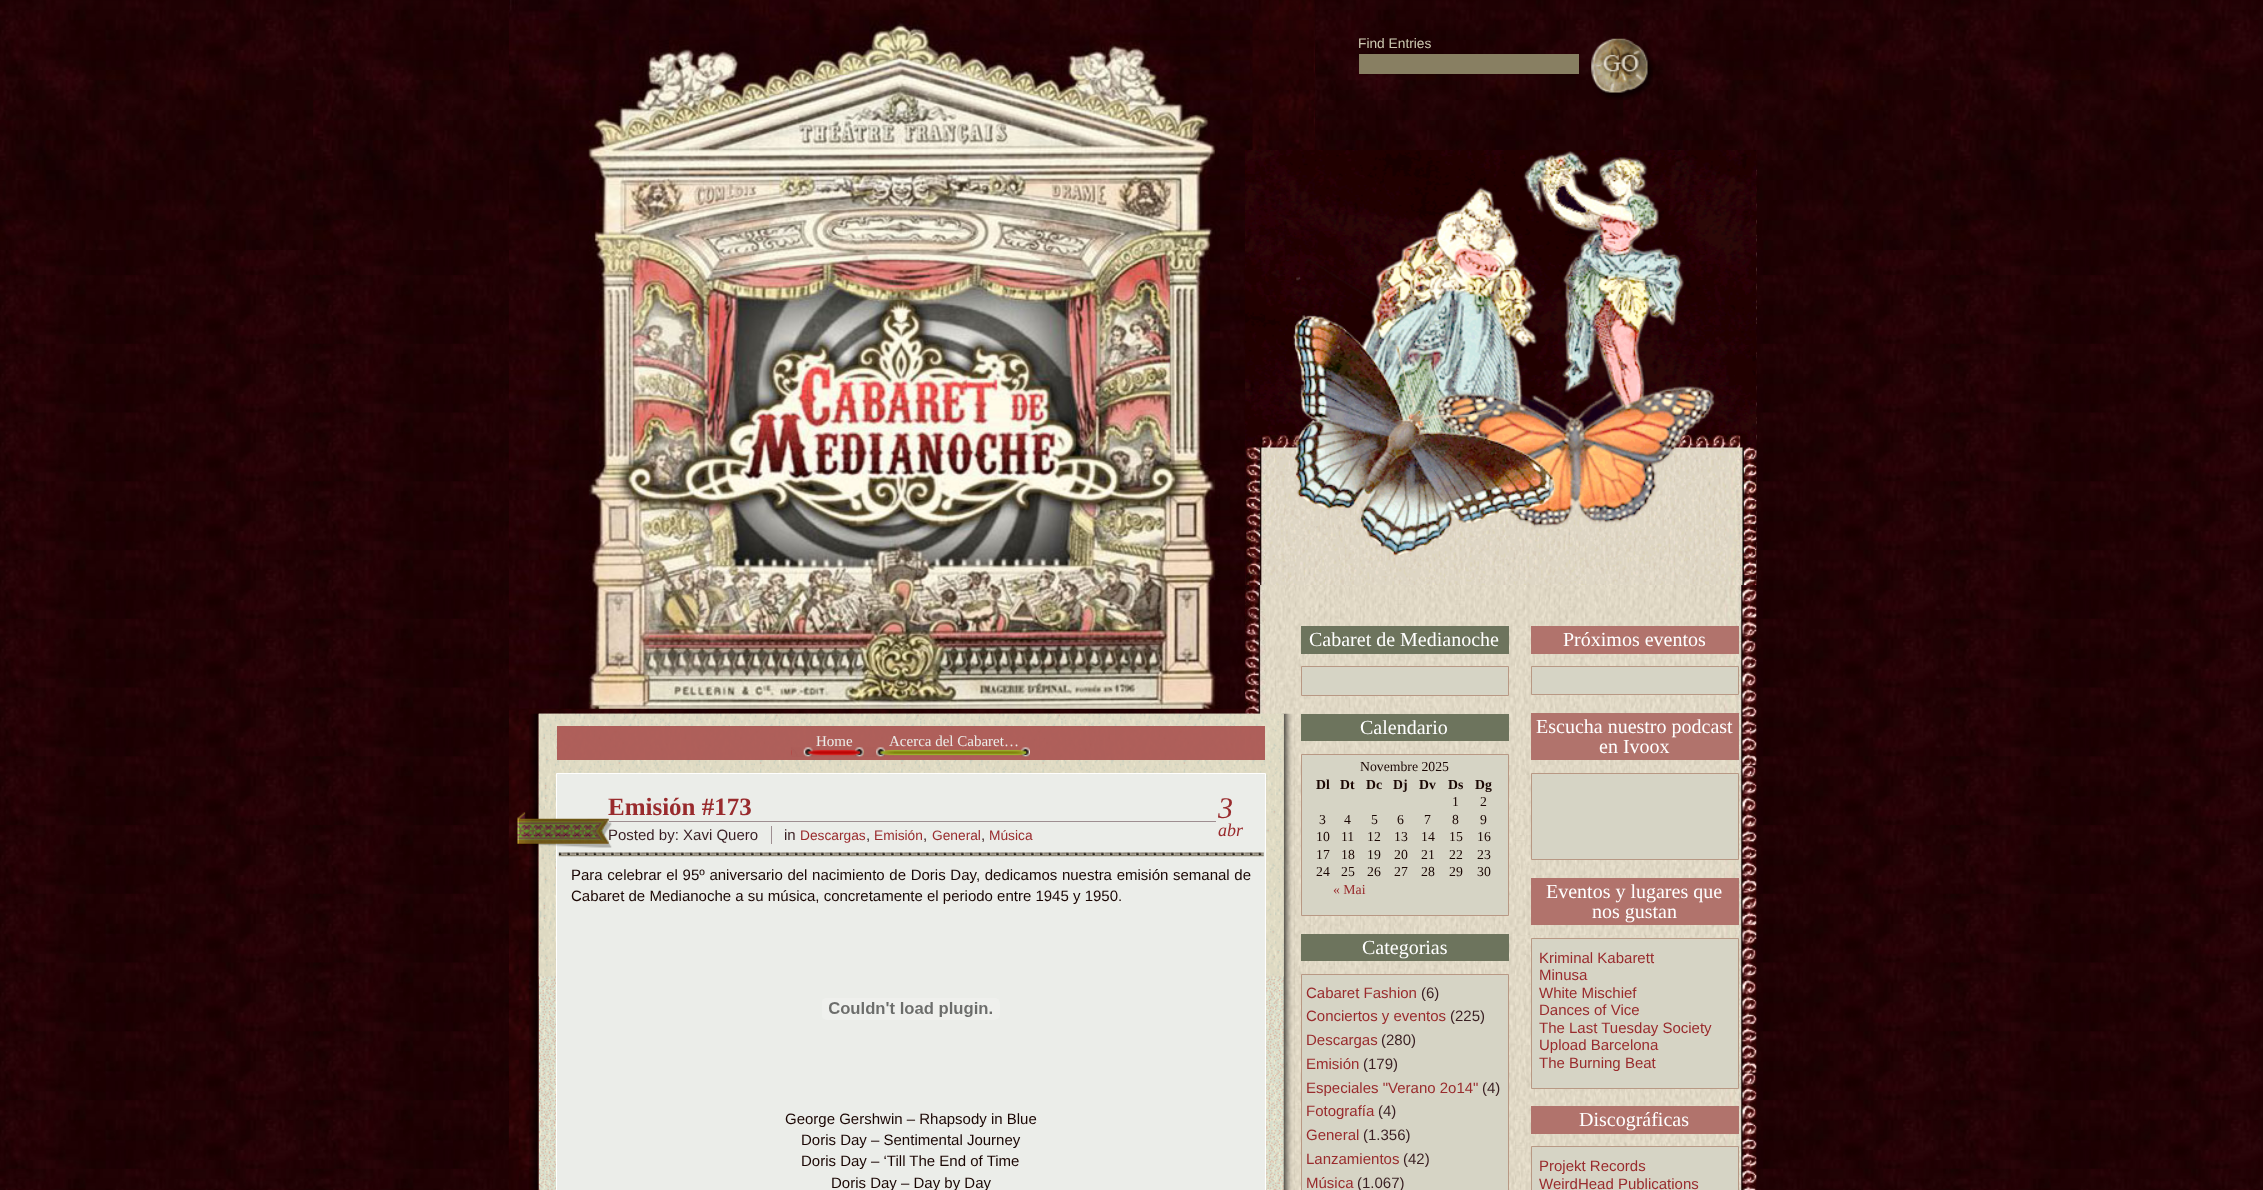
<!DOCTYPE html>
<meta charset="utf-8">
<style>body { margin: 0 } canvas { display: block }</style>
<canvas id="canvas" width="2263" height="1190"></canvas>
<script type="module">
  const canvas = document.getElementById("canvas");
  const ctx = canvas.getContext("2d");
  ctx.miterLimit = 4;
  ctx.fontKerning = "normal";
  async function loadImage(src) {
    const img = new Image();
    img.src = src;
    await img.decode();
    return img;
  }

  ctx.fillStyle = "#ffffff";
  ctx.fillRect(0, 0, 2263, 1190);
  ctx.drawImage(await loadImage("img1.png"), 0, 0, 2263, 1190);
  ctx.drawImage(await loadImage("img2.png"), 0, 67, 2263, 183);
  ctx.drawImage(await loadImage("img3.png"), 508, 0, 807, 1190);
  ctx.drawImage(await loadImage("img4.png"), 509, 0, 744, 709);
  ctx.font = "13.75px Liberation Sans";
  ctx.fillStyle = "#cecbb2";
  ctx.fillText("Find Entries", 1358, 48);
  ctx.drawImage(await loadImage("img5.png"), 1591, 38, 62, 62);
  ctx.fillStyle = "#887f62";
  ctx.fillRect(1359, 54, 220, 20);
  ctx.drawImage(await loadImage("img16.png"), 1245, 150, 512, 1040);
  ctx.drawImage(await loadImage("img6.png"), 529, 713, 766, 477);
  ctx.drawImage(await loadImage("img7.png"), 538, 713, 746, 477);
  ctx.drawImage(await loadImage("img8.png"), 538, 713, 746, 264);
  ctx.fillStyle = "rgba(171, 87, 83, 0.94)";
  ctx.fillRect(557, 726, 708, 34);
  ctx.drawImage(await loadImage("img9.png"), 791, 747, 73, 10);
  ctx.drawImage(await loadImage("img10.png"), 791, 747, 29, 10);
  ctx.font = "15px Liberation Serif";
  ctx.fillStyle = "#ebede9";
  ctx.fillText("Home", 816, 746);
  ctx.drawImage(await loadImage("img11.png"), 863, 747, 167, 10);
  ctx.drawImage(await loadImage("img12.png"), 863, 747, 31, 10);
  ctx.fillText("Acerca del Cabaret…", 889, 746);
  ctx.beginPath();
  ctx.rect(556.5, 773.5, 709, 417);
  ctx.fill();
  ctx.strokeStyle = "#ffffff";
  ctx.stroke();
  ctx.drawImage(await loadImage("img13.png"), 558, 852, 706, 5);
  ctx.fillStyle = "#9e8e91";
  ctx.fillRect(609, 821, 607, 1);
  ctx.font = "bold 25px Liberation Serif";
  ctx.fillStyle = "#992b2d";
  ctx.fillText("Emisión #173", 608, 815);
  ctx.font = "15px Liberation Sans";
  ctx.fillStyle = "#391f23";
  ctx.fillText("Posted by: Xavi Quero", 608, 840);
  ctx.drawImage(await loadImage("img14.png"), 517, 812, 95, 36);
  ctx.font = "italic 30px Liberation Serif";
  ctx.fillStyle = "#992b2d";
  ctx.fillText("3", 1218, 818);
  ctx.font = "italic 18px Liberation Serif";
  ctx.fillText("abr", 1218, 836);
  ctx.fillStyle = "#9e8e91";
  ctx.fillRect(771, 826, 1, 18);
  ctx.font = "15px Liberation Sans";
  ctx.fillStyle = "#391f23";
  ctx.fillText("in", 784, 840);
  ctx.font = "13.75px Liberation Sans";
  ctx.fillStyle = "#992b2d";
  ctx.fillText("Descargas", 800, 840);
  ctx.font = "15px Liberation Sans";
  ctx.fillStyle = "#391f23";
  ctx.fillText(",", 866, 840);
  ctx.font = "13.75px Liberation Sans";
  ctx.fillStyle = "#992b2d";
  ctx.fillText("Emisión", 874, 840);
  ctx.font = "15px Liberation Sans";
  ctx.fillStyle = "#391f23";
  ctx.fillText(",", 923, 840);
  ctx.font = "13.75px Liberation Sans";
  ctx.fillStyle = "#992b2d";
  ctx.fillText("General", 932, 840);
  ctx.font = "15px Liberation Sans";
  ctx.fillStyle = "#391f23";
  ctx.fillText(",", 981, 840);
  ctx.font = "13.75px Liberation Sans";
  ctx.fillStyle = "#992b2d";
  ctx.fillText("Música", 989, 840);
  ctx.wordSpacing = "0.5px";
  ctx.font = "15px Liberation Sans";
  ctx.fillStyle = "#1a0603";
  ctx.fillText("Para celebrar el 95º aniversario del nacimiento de Doris Day, dedicamos nuestra emisión semanal de", 571, 880);
  ctx.wordSpacing = "0px";
  ctx.fillText("Cabaret de Medianoche a su música, concretamente el periodo entre 1945 y 1950.", 571, 901);
  ctx.drawImage(await loadImage("img15.png"), 822, 998, 178, 22);
  ctx.fillText("George Gershwin – Rhapsody in Blue", 785, 1124);
  ctx.fillText("Doris Day – Sentimental Journey", 801, 1145);
  ctx.fillText("Doris Day – ‘Till The End of Time", 801, 1166);
  ctx.fillText("Doris Day – Day by Day", 831, 1188);
  ctx.drawImage(await loadImage("img17.png"), 1245, 150, 512, 435);
  ctx.fillStyle = "#6d745d";
  ctx.fillRect(1301, 626, 208, 28);
  ctx.font = "20px Liberation Serif";
  ctx.fillStyle = "#ffffff";
  ctx.fillText("Cabaret de Medianoche", 1309, 646);
  ctx.fillStyle = "#d6d4c5";
  ctx.beginPath();
  ctx.rect(1301.5, 666.5, 207, 29);
  ctx.fill();
  ctx.strokeStyle = "#b89884";
  ctx.stroke();
  ctx.fillStyle = "#6d745d";
  ctx.fillRect(1301, 714, 208, 27);
  ctx.fillStyle = "#ffffff";
  ctx.fillText("Calendario", 1360, 734);
  ctx.fillStyle = "#d6d4c5";
  ctx.beginPath();
  ctx.rect(1301.5, 754.5, 207, 161);
  ctx.fill();
  ctx.stroke();
  ctx.font = "13.75px Liberation Serif";
  ctx.fillStyle = "#1a0603";
  ctx.fillText("Novembre 2025", 1360, 771);
  ctx.font = "bold 13.75px Liberation Serif";
  ctx.fillText("Dl", 1316, 789);
  ctx.fillText("Dt", 1340, 789);
  ctx.fillText("Dc", 1366, 789);
  ctx.fillText("Dj", 1393, 789);
  ctx.fillText("Dv", 1419, 789);
  ctx.fillText("Ds", 1448, 789);
  ctx.fillText("Dg", 1475, 789);
  ctx.font = "13.75px Liberation Serif";
  ctx.fillText("1", 1452, 806);
  ctx.fillText("2", 1480, 806);
  ctx.fillText("3", 1319, 824);
  ctx.fillText("4", 1344, 824);
  ctx.fillText("5", 1371, 824);
  ctx.fillText("6", 1397, 824);
  ctx.fillText("7", 1424, 824);
  ctx.fillText("8", 1452, 824);
  ctx.fillText("9", 1480, 824);
  ctx.fillText("10", 1316, 841);
  ctx.fillText("11", 1341, 841);
  ctx.fillText("12", 1367, 841);
  ctx.fillText("13", 1394, 841);
  ctx.fillText("14", 1421, 841);
  ctx.fillText("15", 1449, 841);
  ctx.fillText("16", 1477, 841);
  ctx.fillText("17", 1316, 859);
  ctx.fillText("18", 1341, 859);
  ctx.fillText("19", 1367, 859);
  ctx.fillText("20", 1394, 859);
  ctx.fillText("21", 1421, 859);
  ctx.fillText("22", 1449, 859);
  ctx.fillText("23", 1477, 859);
  ctx.fillText("24", 1316, 876);
  ctx.fillText("25", 1341, 876);
  ctx.fillText("26", 1367, 876);
  ctx.fillText("27", 1394, 876);
  ctx.fillText("28", 1421, 876);
  ctx.fillText("29", 1449, 876);
  ctx.fillText("30", 1477, 876);
  ctx.fillStyle = "#992b2d";
  ctx.fillText("« Mai", 1333, 894);
  ctx.fillStyle = "#6d745d";
  ctx.fillRect(1301, 934, 208, 27);
  ctx.font = "20px Liberation Serif";
  ctx.fillStyle = "#ffffff";
  ctx.fillText("Categorias", 1362, 954);
  ctx.fillStyle = "#d6d4c5";
  ctx.beginPath();
  ctx.rect(1301.5, 974.5, 207, 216);
  ctx.fill();
  ctx.stroke();
  ctx.font = "15px Liberation Sans";
  ctx.fillStyle = "#992b2d";
  ctx.fillText("Cabaret Fashion", 1306, 998);
  ctx.fillStyle = "#391f23";
  ctx.fillText("(6)", 1421, 998);
  ctx.fillStyle = "#992b2d";
  ctx.fillText("Conciertos y eventos", 1306, 1021);
  ctx.fillStyle = "#391f23";
  ctx.fillText("(225)", 1450, 1021);
  ctx.fillStyle = "#992b2d";
  ctx.fillText("Descargas", 1306, 1045);
  ctx.fillStyle = "#391f23";
  ctx.fillText("(280)", 1381, 1045);
  ctx.fillStyle = "#992b2d";
  ctx.fillText("Emisión", 1306, 1069);
  ctx.fillStyle = "#391f23";
  ctx.fillText("(179)", 1363, 1069);
  ctx.fillStyle = "#992b2d";
  ctx.fillText("Especiales \"Verano 2o14\"", 1306, 1093);
  ctx.fillStyle = "#391f23";
  ctx.fillText("(4)", 1482, 1093);
  ctx.fillStyle = "#992b2d";
  ctx.fillText("Fotografía", 1306, 1116);
  ctx.fillStyle = "#391f23";
  ctx.fillText("(4)", 1378, 1116);
  ctx.fillStyle = "#992b2d";
  ctx.fillText("General", 1306, 1140);
  ctx.fillStyle = "#391f23";
  ctx.fillText("(1.356)", 1363, 1140);
  ctx.fillStyle = "#992b2d";
  ctx.fillText("Lanzamientos", 1306, 1164);
  ctx.fillStyle = "#391f23";
  ctx.fillText("(42)", 1403, 1164);
  ctx.fillStyle = "#992b2d";
  ctx.fillText("Música", 1306, 1188);
  ctx.fillStyle = "#391f23";
  ctx.fillText("(1.067)", 1357, 1188);
  ctx.fillStyle = "#b1736c";
  ctx.fillRect(1531, 626, 208, 28);
  ctx.font = "20px Liberation Serif";
  ctx.fillStyle = "#ffffff";
  ctx.fillText("Próximos eventos", 1563, 646);
  ctx.fillStyle = "#d6d4c5";
  ctx.beginPath();
  ctx.rect(1531.5, 666.5, 207, 28);
  ctx.fill();
  ctx.stroke();
  ctx.fillStyle = "#b1736c";
  ctx.fillRect(1531, 713, 208, 47);
  ctx.fillStyle = "#ffffff";
  ctx.fillText("Escucha nuestro podcast", 1536, 733);
  ctx.fillText("en Ivoox", 1599, 753);
  ctx.fillStyle = "#d6d4c5";
  ctx.beginPath();
  ctx.rect(1531.5, 773.5, 207, 86);
  ctx.fill();
  ctx.stroke();
  ctx.fillStyle = "#b1736c";
  ctx.fillRect(1531, 878, 208, 47);
  ctx.fillStyle = "#ffffff";
  ctx.fillText("Eventos y lugares que", 1546, 898);
  ctx.fillText("nos gustan", 1592, 918);
  ctx.fillStyle = "#d6d4c5";
  ctx.beginPath();
  ctx.rect(1531.5, 938.5, 207, 150);
  ctx.fill();
  ctx.stroke();
  ctx.font = "15px Liberation Sans";
  ctx.fillStyle = "#992b2d";
  ctx.fillText("Kriminal Kabarett", 1539, 963);
  ctx.fillText("Minusa", 1539, 980);
  ctx.fillText("White Mischief", 1539, 998);
  ctx.fillText("Dances of Vice", 1539, 1015);
  ctx.fillText("The Last Tuesday Society", 1539, 1033);
  ctx.fillText("Upload Barcelona", 1539, 1050);
  ctx.fillText("The Burning Beat", 1539, 1068);
  ctx.fillStyle = "#b1736c";
  ctx.fillRect(1531, 1106, 208, 28);
  ctx.font = "20px Liberation Serif";
  ctx.fillStyle = "#ffffff";
  ctx.fillText("Discográficas", 1579, 1126);
  ctx.fillStyle = "#d6d4c5";
  ctx.beginPath();
  ctx.rect(1531.5, 1146.5, 207, 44);
  ctx.fill();
  ctx.stroke();
  ctx.font = "15px Liberation Sans";
  ctx.fillStyle = "#992b2d";
  ctx.fillText("Projekt Records", 1539, 1171);
  ctx.fillText("WeirdHead Publications", 1539, 1189);
</script>
